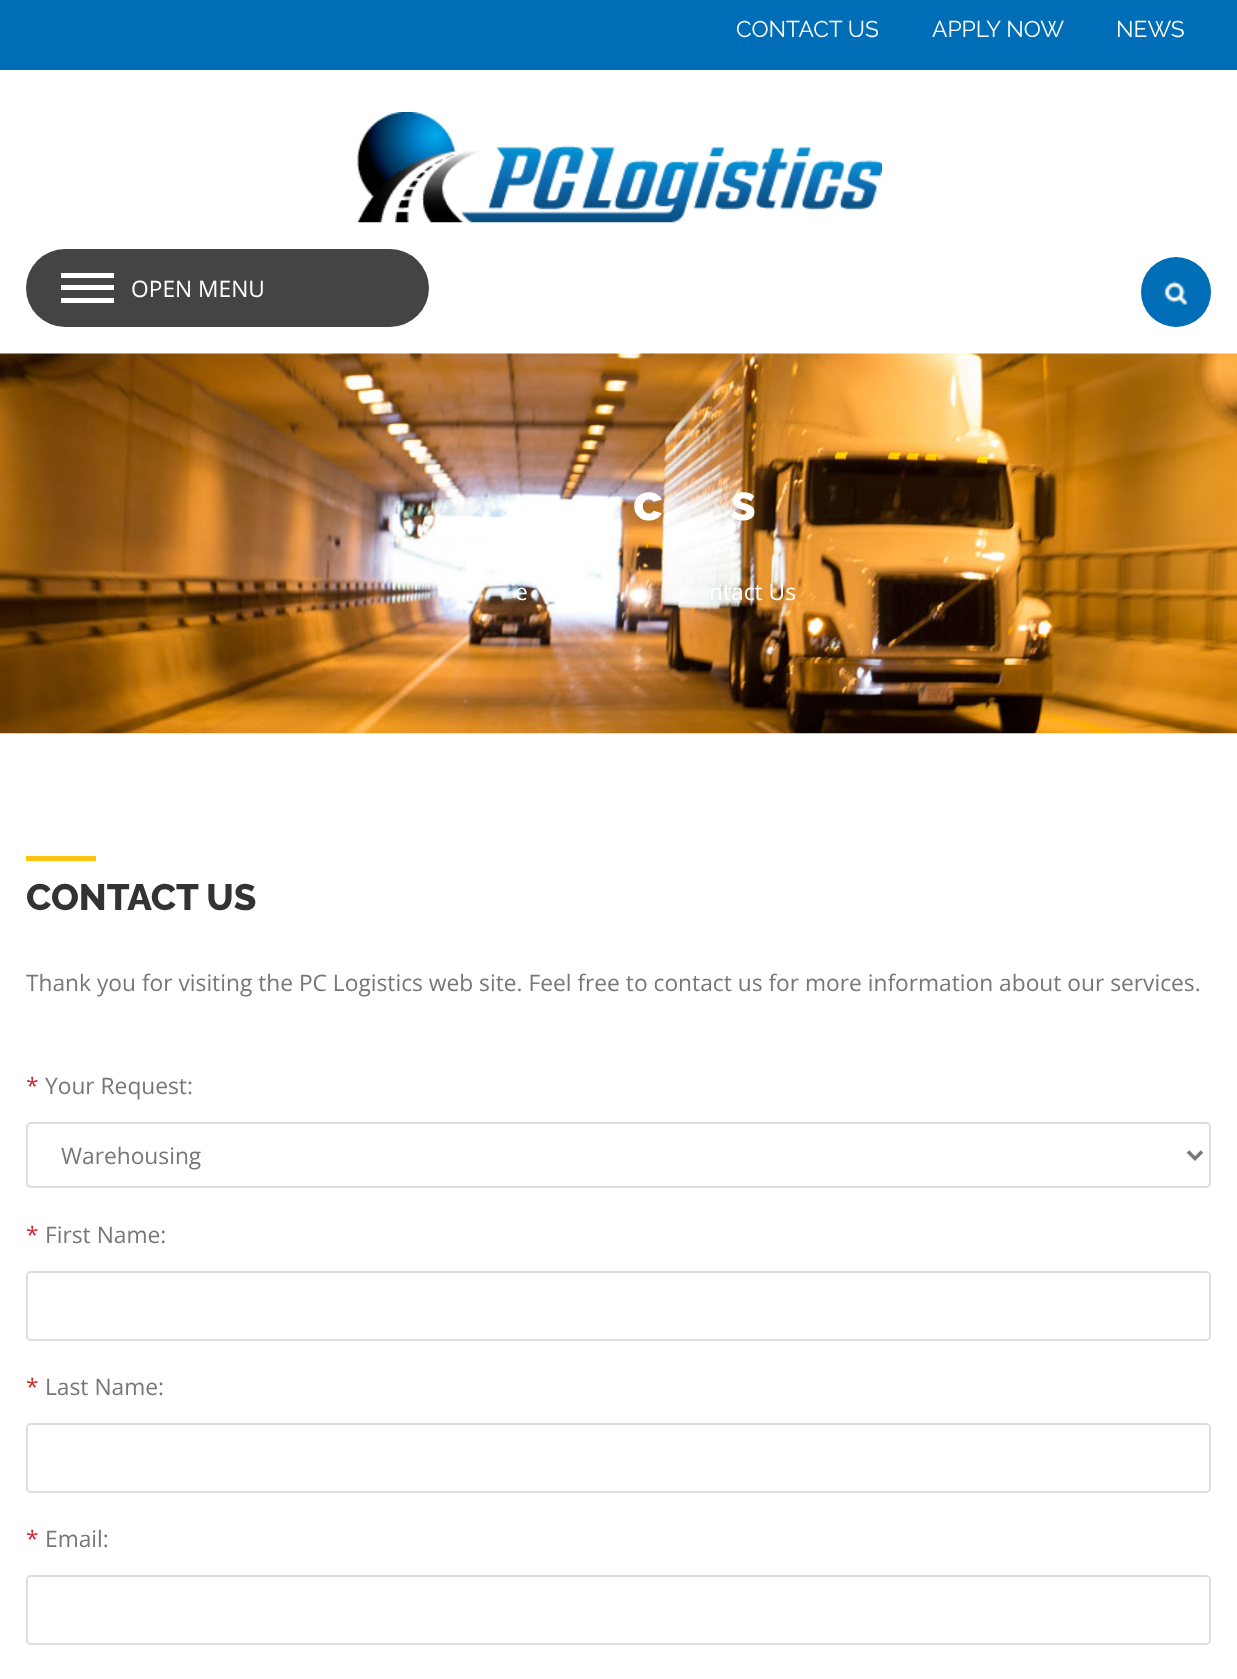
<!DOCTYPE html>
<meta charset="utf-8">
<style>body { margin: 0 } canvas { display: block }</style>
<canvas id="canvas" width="1237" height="1679"></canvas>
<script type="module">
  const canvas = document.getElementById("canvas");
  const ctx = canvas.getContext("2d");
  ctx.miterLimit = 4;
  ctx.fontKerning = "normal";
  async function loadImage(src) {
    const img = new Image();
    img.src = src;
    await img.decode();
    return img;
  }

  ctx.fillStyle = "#ffffff";
  ctx.fillRect(0, 0, 1237, 1679);
  ctx.fillStyle = "#006db7";
  ctx.fillRect(0, 0, 1237, 70);
  ctx.font = "22.75px Raleway";
  ctx.fillStyle = "#ffffff";
  ctx.fillText("CONTACT US", 736, 37);
  ctx.fillText("APPLY NOW", 932, 37);
  ctx.fillText("NEWS", 1116, 37);
  ctx.drawImage(await loadImage("img1.png"), 357, 112, 525, 111);
  ctx.fillStyle = "#444444";
  ctx.beginPath();
  ctx.roundRect(26, 249, 403, 78, 39);
  ctx.fill();
  ctx.fillStyle = "#ffffff";
  ctx.fillRect(61, 298, 53, 5);
  ctx.fillRect(61, 285, 53, 5);
  ctx.fillRect(61, 273, 53, 5);
  ctx.font = "22.75px Open Sans";
  ctx.fillText("OPEN MENU", 131, 297);
  ctx.fillStyle = "#006db7";
  ctx.beginPath();
  ctx.arc(1176, 292, 35, 0, Math.PI * 2);
  ctx.fill();
  ctx.drawImage(await loadImage("img2.png"), 1163, 281, 25, 24);
  ctx.drawImage(await loadImage("img3.png"), 0, 353, 1237, 381);
  ctx.font = "800 52px Raleway";
  ctx.fillStyle = "#ffffff";
  ctx.fillText("c", 633, 520);
  ctx.fillText("s", 730, 520);
  ctx.font = "22.75px Open Sans";
  ctx.fillText("e", 515, 600);
  ctx.fillText("ntact Us", 709, 600);
  ctx.fillStyle = "#fbc40f";
  ctx.fillRect(26, 856, 70, 5);
  ctx.font = "800 36.75px Raleway";
  ctx.fillStyle = "#333333";
  ctx.fillText("CONTACT US", 26, 910);
  ctx.font = "22.75px Open Sans";
  ctx.fillStyle = "#777777";
  ctx.fillText("Thank you for visiting the PC Logistics web site. Feel free to contact us for more information about our services.", 26, 991);
  ctx.fillStyle = "#ce292d";
  ctx.fillText("*", 26, 1094);
  ctx.fillStyle = "#777777";
  ctx.fillText("Your Request:", 45, 1094);
  ctx.beginPath();
  ctx.roundRect(27, 1123, 1183, 64, 4);
  ctx.strokeStyle = "#dddddd";
  ctx.lineWidth = 2;
  ctx.stroke();
  ctx.beginPath();
  ctx.moveTo(1188, 1151.5);
  ctx.lineTo(1195, 1158.5);
  ctx.lineTo(1202, 1151.5);
  ctx.strokeStyle = "#777777";
  ctx.lineWidth = 3.5;
  ctx.stroke();
  ctx.fillText("Warehousing", 61, 1164);
  ctx.fillStyle = "#ce292d";
  ctx.fillText("*", 26, 1243);
  ctx.fillStyle = "#777777";
  ctx.fillText("First Name:", 45, 1243);
  ctx.beginPath();
  ctx.roundRect(27, 1272, 1183, 68, 4);
  ctx.strokeStyle = "#dddddd";
  ctx.lineWidth = 2;
  ctx.stroke();
  ctx.fillStyle = "#ce292d";
  ctx.fillText("*", 26, 1395);
  ctx.fillStyle = "#777777";
  ctx.fillText("Last Name:", 45, 1395);
  ctx.beginPath();
  ctx.roundRect(27, 1424, 1183, 68, 4);
  ctx.stroke();
  ctx.fillStyle = "#ce292d";
  ctx.fillText("*", 26, 1547);
  ctx.fillStyle = "#777777";
  ctx.fillText("Email:", 45, 1547);
  ctx.beginPath();
  ctx.roundRect(27, 1576, 1183, 68, 4);
  ctx.stroke();
</script>
